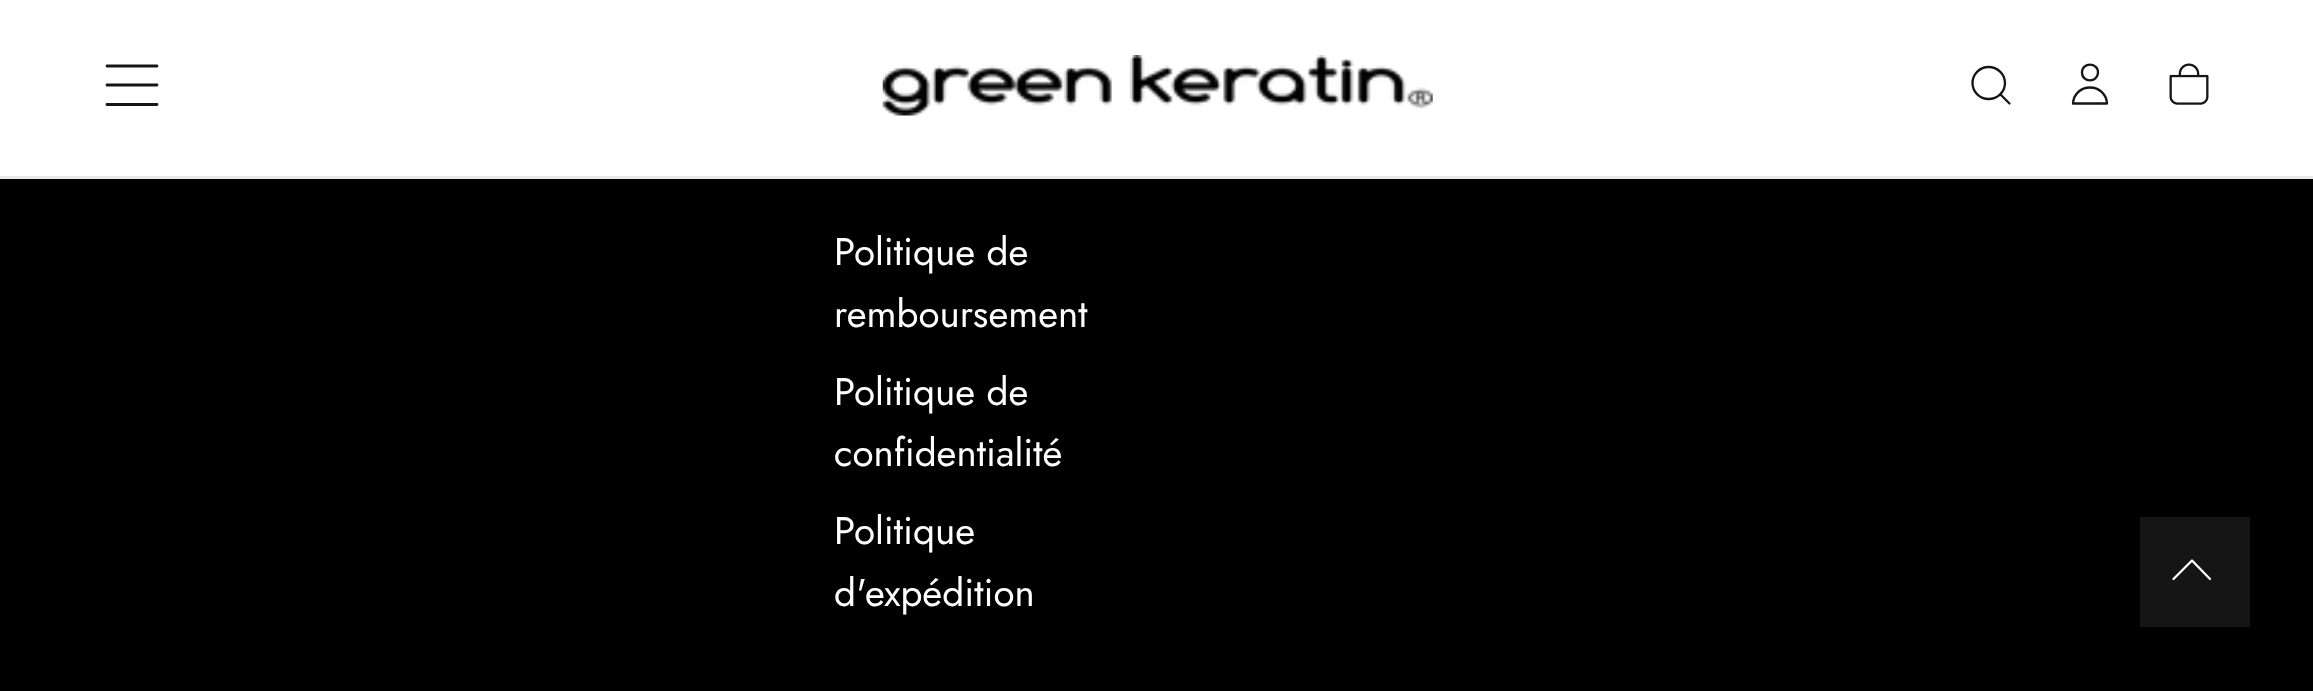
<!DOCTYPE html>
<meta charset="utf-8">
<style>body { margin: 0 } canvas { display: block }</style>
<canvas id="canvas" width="2313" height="691"></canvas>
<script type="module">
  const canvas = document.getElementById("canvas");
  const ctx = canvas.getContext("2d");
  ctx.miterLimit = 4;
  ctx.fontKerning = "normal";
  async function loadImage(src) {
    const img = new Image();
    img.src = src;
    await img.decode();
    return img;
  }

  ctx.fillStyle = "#000000";
  ctx.fillRect(0, 0, 2313, 691);
  ctx.fillStyle = "#ffffff";
  ctx.fillRect(0, 0, 2313, 176);
  ctx.fillStyle = "#e8e8e8";
  ctx.fillRect(0, 176, 2313, 3);
  ctx.beginPath();
  ctx.moveTo(107, 85);
  ctx.lineTo(157, 85);
  ctx.moveTo(107, 66);
  ctx.lineTo(157, 66);
  ctx.moveTo(107, 104.5);
  ctx.lineTo(157, 104.5);
  ctx.strokeStyle = "#151515";
  ctx.lineWidth = 2.8;
  ctx.lineCap = "round";
  ctx.stroke();
  ctx.drawImage(await loadImage("img1.png"), 882, 55, 551, 61);
  ctx.beginPath();
  ctx.moveTo(2009.5, 103.5);
  ctx.lineTo(2000.5, 94.5);
  ctx.moveTo(2005, 83);
  ctx.bezierCurveTo(2005, 92, 1997.5, 99, 1988.5, 99);
  ctx.bezierCurveTo(1980, 99, 1972.5, 92, 1972.5, 83);
  ctx.bezierCurveTo(1972.5, 74, 1980, 67, 1988.5, 67);
  ctx.bezierCurveTo(1997.5, 67, 2005, 74, 2005, 83);
  ctx.closePath();
  ctx.lineWidth = 2.3;
  ctx.stroke();
  ctx.beginPath();
  ctx.moveTo(2098, 72.5);
  ctx.bezierCurveTo(2098, 83, 2082, 83, 2082, 72.5);
  ctx.bezierCurveTo(2082, 62, 2098, 62, 2098, 72.5);
  ctx.closePath();
  ctx.moveTo(2090, 87.5);
  ctx.bezierCurveTo(2080.5, 87.5, 2073.5, 94.5, 2073, 103.5);
  ctx.lineTo(2107, 103.5);
  ctx.bezierCurveTo(2106.5, 94.5, 2099.5, 87.5, 2090, 87.5);
  ctx.closePath();
  ctx.lineCap = "butt";
  ctx.lineJoin = "round";
  ctx.stroke();
  ctx.drawImage(await loadImage("img2.png"), 2169, 63, 40, 42);
  ctx.font = "38.5px Jost";
  ctx.fillStyle = "#ffffff";
  ctx.fillText("Politique de", 834, 265);
  ctx.fillText("remboursement", 834, 327);
  ctx.fillText("Politique de", 834, 405);
  ctx.fillText("confidentialité", 834, 466);
  ctx.fillText("Politique", 834, 544);
  ctx.fillText("d'expédition", 834, 606);
  ctx.fillStyle = "#151515";
  ctx.fillRect(2140, 517, 110, 110);
  ctx.beginPath();
  ctx.moveTo(2173.5, 579);
  ctx.lineTo(2192, 560.5);
  ctx.lineTo(2210, 579);
  ctx.strokeStyle = "#ffffff";
  ctx.lineCap = "round";
  ctx.stroke();
</script>
